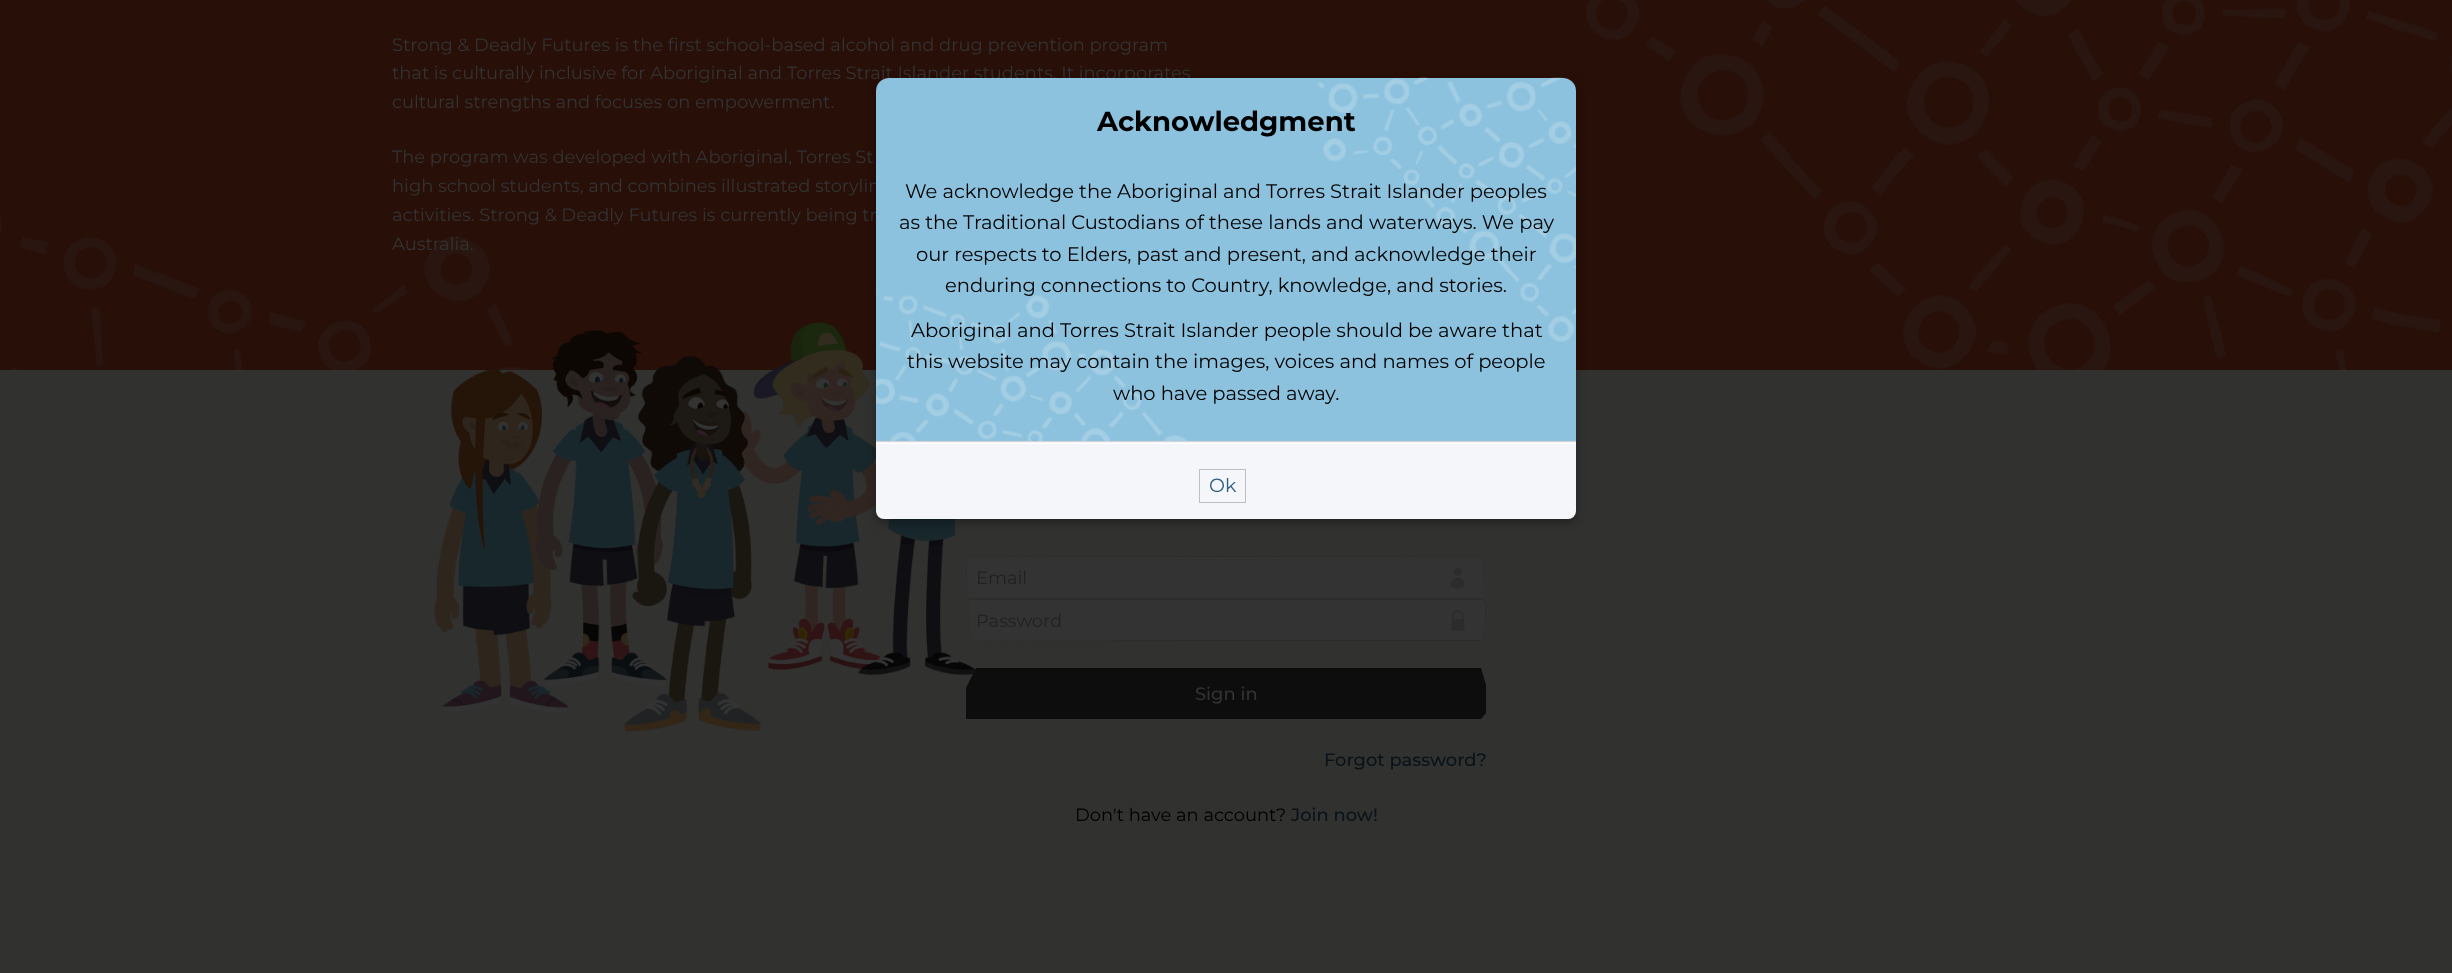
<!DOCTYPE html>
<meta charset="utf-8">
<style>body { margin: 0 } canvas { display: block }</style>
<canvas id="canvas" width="2452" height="973"></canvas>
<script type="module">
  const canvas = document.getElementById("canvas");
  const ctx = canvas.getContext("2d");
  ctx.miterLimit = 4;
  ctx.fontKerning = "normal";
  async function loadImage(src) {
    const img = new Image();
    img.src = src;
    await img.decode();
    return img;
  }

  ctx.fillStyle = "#31312f";
  ctx.fillRect(0, 0, 2452, 973);
  ctx.fillStyle = "#280f08";
  ctx.fillRect(0, 0, 2452, 370);
  ctx.drawImage(await loadImage("img1.png"), 0, 0, 2452, 370);
  ctx.font = "17.9px Montserrat";
  ctx.fillStyle = "#333333";
  ctx.fillText("Strong & Deadly Futures is the first school-based alcohol and drug prevention program", 392, 51);
  ctx.fillText("that is culturally inclusive for Aboriginal and Torres Strait Islander students. It incorporates", 392, 79);
  ctx.fillText("cultural strengths and focuses on empowerment.", 392, 108);
  ctx.fillText("The program was developed with Aboriginal, Torres St", 392, 163);
  ctx.fillText("high school students, and combines illustrated storylin", 392, 192);
  ctx.fillText("activities. Strong & Deadly Futures is currently being tr", 392, 221);
  ctx.fillText("Australia.", 392, 250);
  ctx.beginPath();
  ctx.moveTo(1226, 556);
  ctx.lineTo(1481, 557);
  ctx.lineTo(1486, 606);
  ctx.lineTo(1486, 617);
  ctx.lineTo(1481, 641);
  ctx.lineTo(1089, 641);
  ctx.lineTo(971, 640);
  ctx.lineTo(966, 569);
  ctx.lineTo(966, 566);
  ctx.lineTo(971, 557);
  ctx.closePath();
  ctx.fill();
  ctx.drawImage(await loadImage("img3.png"), 1451, 567, 14, 22);
  ctx.fillStyle = "#2d2d2e";
  ctx.beginPath();
  ctx.moveTo(966, 569);
  ctx.lineTo(966, 566);
  ctx.lineTo(967, 564);
  ctx.lineTo(967, 583);
  ctx.closePath();
  ctx.moveTo(1485, 597);
  ctx.bezierCurveTo(1484, 598, 1483, 599, 1481, 599);
  ctx.lineTo(971, 599);
  ctx.lineTo(968, 598);
  ctx.lineTo(968, 597);
  ctx.bezierCurveTo(969, 597, 970, 598, 971, 598);
  ctx.lineTo(1481, 598);
  ctx.bezierCurveTo(1483, 598, 1485, 597, 1485, 595);
  ctx.closePath();
  ctx.moveTo(1226, 556);
  ctx.lineTo(971, 557);
  ctx.lineTo(1481, 557);
  ctx.closePath();
  ctx.fill("evenodd");
  ctx.drawImage(await loadImage("img4.png"), 1451, 610, 14, 21);
  ctx.beginPath();
  ctx.moveTo(1469, 641);
  ctx.bezierCurveTo(1303, 641, 1137, 641, 971, 640);
  ctx.lineTo(1482, 640);
  ctx.lineTo(1481, 641);
  ctx.closePath();
  ctx.moveTo(971, 599);
  ctx.lineTo(1481, 599);
  ctx.bezierCurveTo(1483, 599, 1485, 600, 1486, 602);
  ctx.lineTo(1486, 617);
  ctx.lineTo(1485, 622);
  ctx.lineTo(1485, 610);
  ctx.bezierCurveTo(1485, 607, 1486, 602, 1483, 600);
  ctx.lineTo(971, 600);
  ctx.lineTo(968, 601);
  ctx.lineTo(968, 600);
  ctx.closePath();
  ctx.fill("evenodd");
  ctx.fillStyle = "#0d0d0d";
  ctx.beginPath();
  ctx.moveTo(966, 719);
  ctx.lineTo(966, 688);
  ctx.lineTo(976, 668);
  ctx.lineTo(1481, 668);
  ctx.lineTo(1486, 685);
  ctx.lineTo(1486, 713);
  ctx.lineTo(1481, 719);
  ctx.closePath();
  ctx.fill();
  ctx.drawImage(await loadImage("img2.png"), 434, 322, 543, 410);
  ctx.fillStyle = "#222222";
  ctx.fillText("Email", 976, 584);
  ctx.fillText("Password", 976, 627);
  ctx.font = "500 17.9px Montserrat";
  ctx.fillStyle = "#333333";
  ctx.fillText("Sign in", 1195, 700);
  ctx.fillStyle = "#091319";
  ctx.fillText("Forgot password?", 1324, 766);
  ctx.font = "17.9px Montserrat";
  ctx.fillStyle = "#000000";
  ctx.fillText("Don't have an account?", 1075, 821);
  ctx.font = "500 17.9px Montserrat";
  ctx.fillStyle = "#091319";
  ctx.fillText("Join now!", 1291, 821);
  ctx.save();
  ctx.beginPath();
  ctx.moveTo(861, 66);
  ctx.lineTo(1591, 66);
  ctx.lineTo(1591, 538);
  ctx.lineTo(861, 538);
  ctx.closePath();
  ctx.moveTo(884, 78);
  ctx.lineTo(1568, 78);
  ctx.bezierCurveTo(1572.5, 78, 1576, 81.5, 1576, 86);
  ctx.lineTo(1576, 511);
  ctx.bezierCurveTo(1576, 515.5, 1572.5, 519, 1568, 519);
  ctx.lineTo(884, 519);
  ctx.bezierCurveTo(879.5, 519, 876, 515.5, 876, 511);
  ctx.lineTo(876, 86);
  ctx.bezierCurveTo(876, 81.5, 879.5, 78, 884, 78);
  ctx.closePath();
  ctx.clip("evenodd");
  ctx.fillStyle = "rgba(0, 0, 0, 0.3)";
  ctx.filter = "blur(4.5px)";
  ctx.beginPath();
  ctx.roundRect(876, 81, 700, 442, 8);
  ctx.fill();
  ctx.filter = "none";
  ctx.restore();
  ctx.fillStyle = "#8cc2de";
  ctx.beginPath();
  ctx.roundRect(876, 78, 700, 363, [13, 13, 0, 0]);
  ctx.fill();
  ctx.drawImage(await loadImage("img5.png"), 876, 77, 700, 364);
  ctx.font = "bold 27.5px Montserrat";
  ctx.fillStyle = "#000000";
  ctx.fillText("Acknowledgment", 1097, 131);
  ctx.font = "19.5px Montserrat";
  ctx.fillText("We acknowledge the Aboriginal and Torres Strait Islander peoples", 905, 198);
  ctx.fillText("as the Traditional Custodians of these lands and waterways. We pay", 899, 229);
  ctx.fillText("our respects to Elders, past and present, and acknowledge their", 916, 261);
  ctx.fillText("enduring connections to Country, knowledge, and stories.", 945, 292);
  ctx.fillText("Aboriginal and Torres Strait Islander people should be aware that", 911, 337);
  ctx.fillText("this website may contain the images, voices and names of people", 907, 368);
  ctx.fillText("who have passed away.", 1113, 400);
  ctx.fillStyle = "#f4f6f9";
  ctx.beginPath();
  ctx.roundRect(876, 441, 700, 78, [0, 0, 8, 8]);
  ctx.fill();
  ctx.fillStyle = "#ffffff";
  ctx.fillRect(876, 443, 700, 1);
  ctx.fillStyle = "#d4d4d4";
  ctx.fillRect(876, 441, 700, 1);
  ctx.strokeStyle = "#bfbfbf";
  ctx.strokeRect(1199.5, 469.5, 46, 33);
  ctx.font = "19px Montserrat";
  ctx.fillStyle = "#2b5e7f";
  ctx.fillText("Ok", 1209, 492);
</script>
